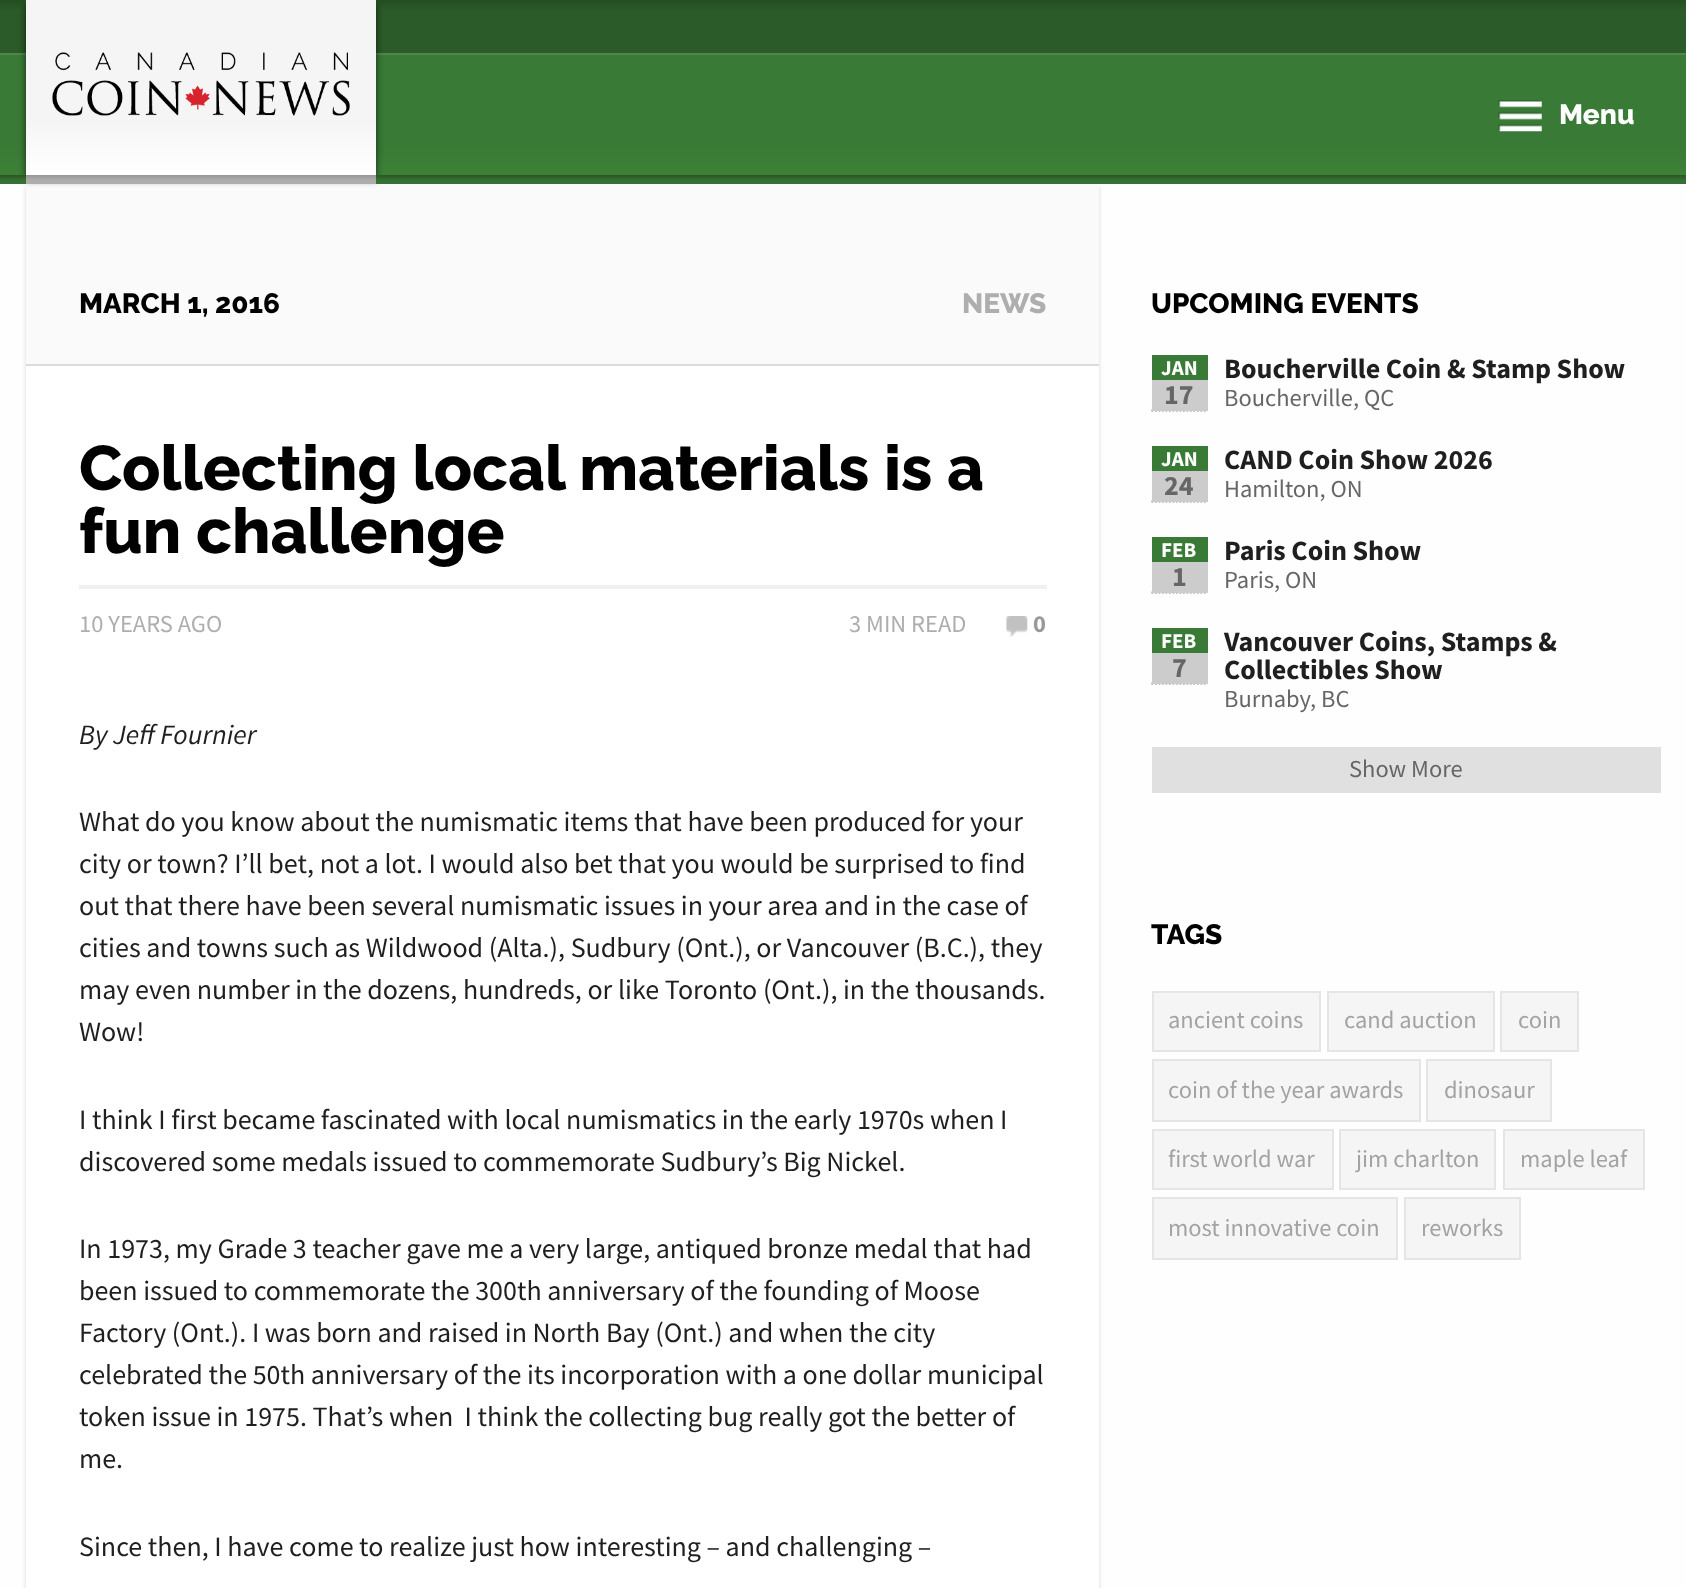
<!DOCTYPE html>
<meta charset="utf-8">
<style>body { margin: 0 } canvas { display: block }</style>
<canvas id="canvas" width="1686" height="1588"></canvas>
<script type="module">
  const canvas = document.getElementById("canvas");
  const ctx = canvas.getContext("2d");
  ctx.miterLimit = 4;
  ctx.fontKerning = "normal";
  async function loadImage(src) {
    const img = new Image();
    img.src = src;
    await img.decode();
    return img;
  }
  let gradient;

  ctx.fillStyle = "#fefefe";
  ctx.fillRect(0, 0, 1686, 1588);
  gradient = ctx.createLinearGradient(844, 0, 844, 53);
  gradient.addColorStop(0, "#254e22");
  gradient.addColorStop(0.2, "#2b5b28");
  ctx.fillStyle = gradient;
  ctx.fillRect(0, 0, 1686, 53);
  gradient = ctx.createLinearGradient(844, 54, 844, 175);
  gradient.addColorStop(0.77, "#397a36");
  gradient.addColorStop(1, "#3d8237");
  ctx.fillStyle = gradient;
  ctx.fillRect(0, 55, 1686, 120);
  ctx.fillStyle = "#4d884a";
  ctx.fillRect(0, 53, 1686, 2);
  ctx.fillStyle = "rgba(0, 0, 0, 0.15)";
  ctx.filter = "blur(2px)";
  ctx.beginPath();
  ctx.rect(26, 187, 1073, 182);
  ctx.fill();
  ctx.filter = "none";
  ctx.fillStyle = "#fafafa";
  ctx.fillRect(26, 185, 1073, 179);
  ctx.fillStyle = "rgba(0, 0, 0, 0.65)";
  ctx.filter = "blur(3.5px)";
  ctx.beginPath();
  ctx.rect(26, 5, 350, 175);
  ctx.fill();
  ctx.filter = "none";
  gradient = ctx.createLinearGradient(201, 0, 201, 175);
  gradient.addColorStop(0.69, "#f5f5f5");
  gradient.addColorStop(0.99, "#ffffff");
  ctx.fillStyle = gradient;
  ctx.fillRect(26, 0, 350, 175);
  ctx.drawImage(await loadImage("img1.png"), 52, 52, 298, 64);
  gradient = ctx.createLinearGradient(844, 175, 844, 184);
  gradient.addColorStop(0, "#2d5326");
  gradient.addColorStop(0.63, "#357232");
  ctx.fillStyle = gradient;
  ctx.fillRect(0, 175, 1686, 9);
  gradient = ctx.createLinearGradient(201, 175, 201, 184);
  gradient.addColorStop(0, "#979797");
  gradient.addColorStop(0.59, "#adadad");
  ctx.fillStyle = gradient;
  ctx.fillRect(26, 175, 350, 9);
  ctx.drawImage(await loadImage("img2.png"), 1498, 100, 44, 32);
  ctx.font = "800 28px Raleway";
  ctx.fillStyle = "#ffffff";
  ctx.fillText("Menu", 1559, 124);
  ctx.fillStyle = "#dcdcdc";
  ctx.fillRect(26, 364, 1073, 2);
  ctx.fillStyle = "#000000";
  ctx.fillText("MARCH 1, 2016", 79, 313);
  ctx.fillStyle = "#aeaeae";
  ctx.fillText("NEWS", 962, 313);
  ctx.fillStyle = "rgba(0, 0, 0, 0.15)";
  ctx.filter = "blur(2px)";
  ctx.beginPath();
  ctx.rect(26, 369, 1073, 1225);
  ctx.fill();
  ctx.filter = "none";
  ctx.fillStyle = "#ffffff";
  ctx.fillRect(26, 366, 1073, 1222);
  ctx.font = "800 63px Raleway";
  ctx.fillStyle = "#000000";
  ctx.fillText("Collecting local materials is a", 79, 490);
  ctx.fillText("fun challenge", 79, 553);
  ctx.fillStyle = "#f0f0f0";
  ctx.fillRect(79, 585, 968, 4);
  ctx.font = "24.5px Source Sans Pro";
  ctx.fillStyle = "#aeaeae";
  ctx.fillText("10 YEARS AGO", 79, 632);
  ctx.fillText("3 MIN READ", 849, 632);
  ctx.drawImage(await loadImage("img3.png"), 1006, 616, 22, 21);
  ctx.font = "bold 24.5px Source Sans Pro";
  ctx.fillStyle = "#999999";
  ctx.fillText("0", 1033, 632);
  ctx.font = "italic 28px Source Sans Pro";
  ctx.fillStyle = "#1f1f1f";
  ctx.fillText("By Jeff Fournier", 79, 744);
  ctx.font = "28px Source Sans Pro";
  ctx.fillText("What do you know about the numismatic items that have been produced for your", 79, 831);
  ctx.fillText("city or town? I’ll bet, not a lot. I would also bet that you would be surprised to find", 79, 873);
  ctx.fillText("out that there have been several numismatic issues in your area and in the case of", 79, 915);
  ctx.fillText("cities and towns such as Wildwood (Alta.), Sudbury (Ont.), or Vancouver (B.C.), they", 79, 957);
  ctx.fillText("may even number in the dozens, hundreds, or like Toronto (Ont.), in the thousands.", 79, 999);
  ctx.fillText("Wow!", 79, 1041);
  ctx.fillText("I think I first became fascinated with local numismatics in the early 1970s when I", 79, 1129);
  ctx.fillText("discovered some medals issued to commemorate Sudbury’s Big Nickel.", 79, 1171);
  ctx.fillText("In 1973, my Grade 3 teacher gave me a very large, antiqued bronze medal that had", 79, 1258);
  ctx.fillText("been issued to commemorate the 300th anniversary of the founding of Moose", 79, 1300);
  ctx.fillText("Factory (Ont.). I was born and raised in North Bay (Ont.) and when the city", 79, 1342);
  ctx.fillText("celebrated the 50th anniversary of the its incorporation with a one dollar municipal", 79, 1384);
  ctx.fillText("token issue in 1975. That’s when  I think the collecting bug really got the better of", 79, 1426);
  ctx.fillText("me.", 79, 1468);
  ctx.fillText("Since then, I have come to realize just how interesting – and challenging –", 79, 1556);
  ctx.font = "800 28px Raleway";
  ctx.fillStyle = "#000000";
  ctx.fillText("UPCOMING EVENTS", 1151, 313);
  ctx.beginPath();
  ctx.moveTo(1151.5, 410.5);
  ctx.lineTo(1207.5, 410.5);
  ctx.strokeStyle = "#8a8a8a";
  ctx.lineWidth = 1.8;
  ctx.setLineDash([1.75, 1.75]);
  ctx.stroke();
  ctx.fillStyle = "#397a36";
  ctx.fillRect(1152, 355, 56, 25);
  ctx.font = "bold 21px Source Sans Pro";
  ctx.fillStyle = "#ffffff";
  ctx.fillText("JAN", 1161, 375);
  ctx.fillStyle = "#cccccc";
  ctx.fillRect(1152, 380, 56, 31);
  ctx.font = "bold 28px Source Sans Pro";
  ctx.fillStyle = "#666666";
  ctx.fillText("17", 1164, 404);
  ctx.fillStyle = "#1f1f1f";
  ctx.fillText("Boucherville Coin & Stamp Show", 1224, 378);
  ctx.font = "24.5px Source Sans Pro";
  ctx.fillStyle = "#666666";
  ctx.fillText("Boucherville, QC", 1224, 406);
  ctx.beginPath();
  ctx.moveTo(1151.5, 501.5);
  ctx.lineTo(1207.5, 501.5);
  ctx.stroke();
  ctx.fillStyle = "#397a36";
  ctx.fillRect(1152, 446, 56, 25);
  ctx.font = "bold 21px Source Sans Pro";
  ctx.fillStyle = "#ffffff";
  ctx.fillText("JAN", 1161, 466);
  ctx.fillStyle = "#cccccc";
  ctx.fillRect(1152, 471, 56, 31);
  ctx.font = "bold 28px Source Sans Pro";
  ctx.fillStyle = "#666666";
  ctx.fillText("24", 1164, 495);
  ctx.fillStyle = "#1f1f1f";
  ctx.fillText("CAND Coin Show 2026", 1224, 469);
  ctx.font = "24.5px Source Sans Pro";
  ctx.fillStyle = "#666666";
  ctx.fillText("Hamilton, ON", 1224, 497);
  ctx.beginPath();
  ctx.moveTo(1151.5, 592.5);
  ctx.lineTo(1207.5, 592.5);
  ctx.stroke();
  ctx.fillStyle = "#397a36";
  ctx.fillRect(1152, 537, 56, 25);
  ctx.font = "bold 21px Source Sans Pro";
  ctx.fillStyle = "#ffffff";
  ctx.fillText("FEB", 1161, 557);
  ctx.fillStyle = "#cccccc";
  ctx.fillRect(1152, 562, 56, 31);
  ctx.font = "bold 28px Source Sans Pro";
  ctx.fillStyle = "#666666";
  ctx.fillText("1", 1172, 586);
  ctx.fillStyle = "#1f1f1f";
  ctx.fillText("Paris Coin Show", 1224, 560);
  ctx.font = "24.5px Source Sans Pro";
  ctx.fillStyle = "#666666";
  ctx.fillText("Paris, ON", 1224, 588);
  ctx.beginPath();
  ctx.moveTo(1151.5, 683.5);
  ctx.lineTo(1207.5, 683.5);
  ctx.stroke();
  ctx.fillStyle = "#397a36";
  ctx.fillRect(1152, 628, 56, 25);
  ctx.font = "bold 21px Source Sans Pro";
  ctx.fillStyle = "#ffffff";
  ctx.fillText("FEB", 1161, 648);
  ctx.fillStyle = "#cccccc";
  ctx.fillRect(1152, 653, 56, 31);
  ctx.font = "bold 28px Source Sans Pro";
  ctx.fillStyle = "#666666";
  ctx.fillText("7", 1172, 677);
  ctx.fillStyle = "#1f1f1f";
  ctx.fillText("Vancouver Coins, Stamps &", 1224, 651);
  ctx.fillText("Collectibles Show", 1224, 679);
  ctx.font = "24.5px Source Sans Pro";
  ctx.fillStyle = "#666666";
  ctx.fillText("Burnaby, BC", 1224, 707);
  ctx.fillStyle = "#e0e0e0";
  ctx.fillRect(1152, 747, 509, 46);
  ctx.fillStyle = "#666666";
  ctx.fillText("Show More", 1349, 777);
  ctx.font = "800 28px Raleway";
  ctx.fillStyle = "#000000";
  ctx.fillText("TAGS", 1151, 944);
  ctx.fillStyle = "#f5f5f5";
  ctx.beginPath();
  ctx.rect(1153, 992, 167, 59);
  ctx.fill();
  ctx.strokeStyle = "#e5e5e5";
  ctx.lineWidth = 2;
  ctx.setLineDash([]);
  ctx.stroke();
  ctx.font = "24.5px Source Sans Pro";
  ctx.fillStyle = "#a3a3a3";
  ctx.fillText("ancient coins", 1168, 1028);
  ctx.fillStyle = "#f5f5f5";
  ctx.beginPath();
  ctx.rect(1328, 992, 166, 59);
  ctx.fill();
  ctx.stroke();
  ctx.fillStyle = "#a3a3a3";
  ctx.fillText("cand auction", 1344, 1028);
  ctx.fillStyle = "#f5f5f5";
  ctx.beginPath();
  ctx.rect(1501, 992, 77, 59);
  ctx.fill();
  ctx.stroke();
  ctx.fillStyle = "#a3a3a3";
  ctx.fillText("coin", 1518, 1028);
  ctx.fillStyle = "#f5f5f5";
  ctx.beginPath();
  ctx.rect(1153, 1060, 267, 61);
  ctx.fill();
  ctx.stroke();
  ctx.fillStyle = "#a3a3a3";
  ctx.fillText("coin of the year awards", 1168, 1098);
  ctx.fillStyle = "#f5f5f5";
  ctx.beginPath();
  ctx.rect(1427, 1060, 124, 61);
  ctx.fill();
  ctx.stroke();
  ctx.fillStyle = "#a3a3a3";
  ctx.fillText("dinosaur", 1444, 1098);
  ctx.fillStyle = "#f5f5f5";
  ctx.beginPath();
  ctx.rect(1153, 1130, 180, 59);
  ctx.fill();
  ctx.stroke();
  ctx.fillStyle = "#a3a3a3";
  ctx.fillText("first world war", 1168, 1167);
  ctx.fillStyle = "#f5f5f5";
  ctx.beginPath();
  ctx.rect(1340, 1130, 155, 59);
  ctx.fill();
  ctx.stroke();
  ctx.fillStyle = "#a3a3a3";
  ctx.fillText("jim charlton", 1356, 1167);
  ctx.fillStyle = "#f5f5f5";
  ctx.beginPath();
  ctx.rect(1504, 1130, 140, 59);
  ctx.fill();
  ctx.stroke();
  ctx.fillStyle = "#a3a3a3";
  ctx.fillText("maple leaf", 1520, 1167);
  ctx.fillStyle = "#f5f5f5";
  ctx.beginPath();
  ctx.rect(1153, 1198, 244, 61);
  ctx.fill();
  ctx.stroke();
  ctx.fillStyle = "#a3a3a3";
  ctx.fillText("most innovative coin", 1168, 1236);
  ctx.fillStyle = "#f5f5f5";
  ctx.beginPath();
  ctx.rect(1405, 1198, 115, 61);
  ctx.fill();
  ctx.stroke();
  ctx.fillStyle = "#a3a3a3";
  ctx.fillText("reworks", 1421, 1236);
</script>
